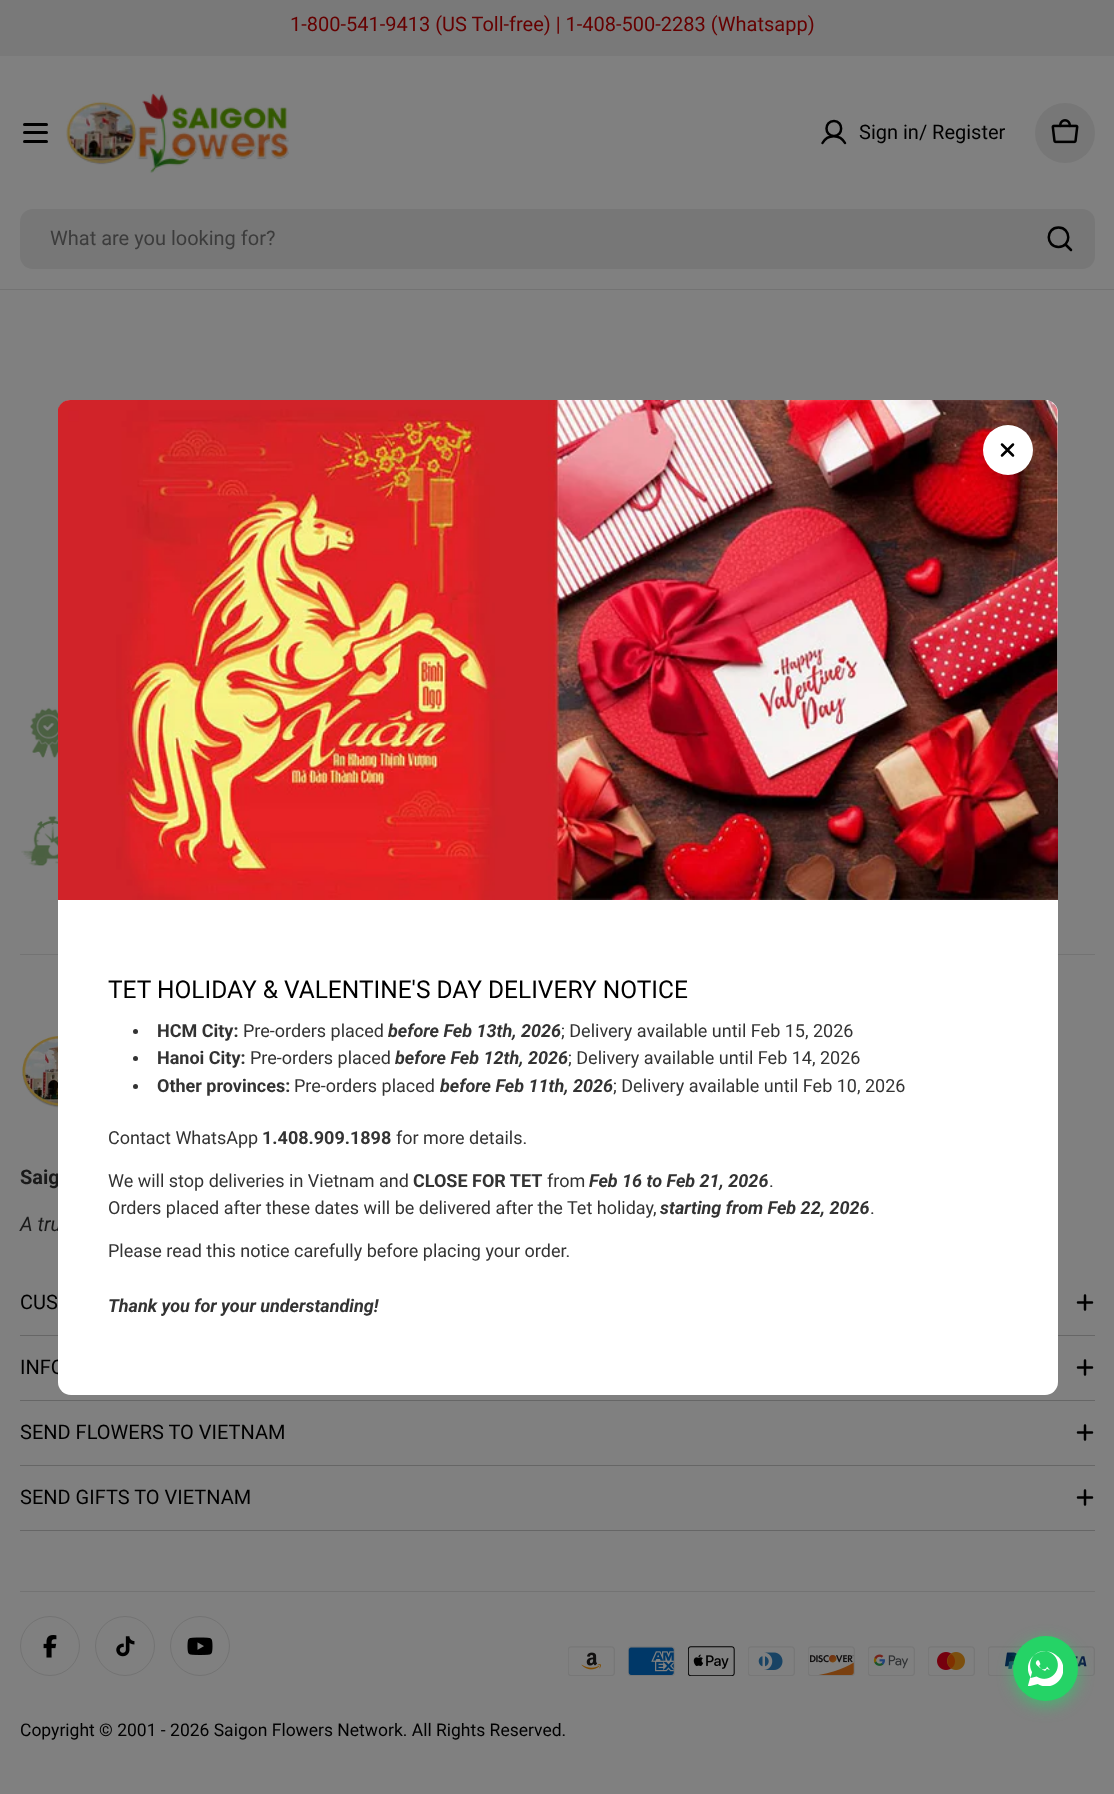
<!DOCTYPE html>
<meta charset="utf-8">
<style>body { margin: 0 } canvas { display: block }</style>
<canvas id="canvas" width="1114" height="1794"></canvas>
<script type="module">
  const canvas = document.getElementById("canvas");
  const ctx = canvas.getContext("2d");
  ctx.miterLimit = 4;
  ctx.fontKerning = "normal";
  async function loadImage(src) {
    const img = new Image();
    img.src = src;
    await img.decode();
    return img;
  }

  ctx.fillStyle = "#808080";
  ctx.fillRect(0, 0, 1114, 1794);
  ctx.fillStyle = "#797979";
  ctx.fillRect(0, 0, 1114, 56);
  ctx.font = "20px Roboto";
  ctx.fillStyle = "#660000";
  ctx.fillText("1-800-541-9413 (US Toll-free) | 1-408-500-2283 (Whatsapp)", 290, 31);
  ctx.fillStyle = "#000000";
  ctx.beginPath();
  ctx.roundRect(23, 131, 25, 3, 1.5);
  ctx.fill();
  ctx.beginPath();
  ctx.roundRect(23, 123, 25, 3, 1.5);
  ctx.fill();
  ctx.beginPath();
  ctx.roundRect(23, 140, 25, 3, 1.5);
  ctx.fill();
  ctx.drawImage(await loadImage("img1.png"), 66, 93, 223, 80);
  ctx.beginPath();
  ctx.moveTo(834, 136);
  ctx.bezierCurveTo(843.5, 136, 843.5, 121, 834, 121);
  ctx.bezierCurveTo(824, 121, 824, 136, 834, 136);
  ctx.closePath();
  ctx.moveTo(822.5, 143);
  ctx.bezierCurveTo(827.5, 134, 840, 134, 845, 143);
  ctx.strokeStyle = "#000000";
  ctx.lineWidth = 2.5;
  ctx.lineCap = "round";
  ctx.lineJoin = "round";
  ctx.stroke();
  ctx.fillText("Sign in/ Register", 859, 139);
  ctx.fillStyle = "#777777";
  ctx.beginPath();
  ctx.arc(1065, 133, 30, 0, Math.PI * 2);
  ctx.fill();
  ctx.drawImage(await loadImage("img2.png"), 1051, 119, 28, 25);
  ctx.beginPath();
  ctx.roundRect(20, 209, 1075, 60, 13);
  ctx.fill();
  ctx.fillStyle = "#3c3c3c";
  ctx.fillText("What are you looking for?", 50, 245);
  ctx.beginPath();
  ctx.moveTo(1058.5, 247);
  ctx.bezierCurveTo(1071.5, 247, 1071.5, 227.5, 1058.5, 227.5);
  ctx.bezierCurveTo(1045.5, 227.5, 1045.5, 247, 1058.5, 247);
  ctx.closePath();
  ctx.moveTo(1065.5, 244.5);
  ctx.lineTo(1071, 250);
  ctx.stroke();
  ctx.fillStyle = "#737373";
  ctx.fillRect(0, 289, 1114, 1);
  ctx.drawImage(await loadImage("img3.png"), 30, 707, 28, 51);
  ctx.drawImage(await loadImage("img4.png"), 21, 816, 37, 50);
  ctx.fillRect(20, 954, 1075, 1);
  ctx.drawImage(await loadImage("img5.png"), 22, 1036, 36, 72);
  ctx.font = "bold 20px Roboto";
  ctx.fillStyle = "#1a1a1a";
  ctx.fillText("Saig", 20, 1184);
  ctx.font = "italic 20px Roboto";
  ctx.fillText("A tru", 20, 1231);
  ctx.fillStyle = "#666666";
  ctx.fillRect(20, 1335, 1075, 1);
  ctx.font = "20px Roboto";
  ctx.fillStyle = "#000000";
  ctx.fillText("CUS", 20, 1309);
  ctx.beginPath();
  ctx.moveTo(1078, 1302.5);
  ctx.lineTo(1092, 1302.5);
  ctx.moveTo(1085, 1295.5);
  ctx.lineTo(1085, 1309.5);
  ctx.stroke();
  ctx.fillStyle = "#666666";
  ctx.fillRect(20, 1400, 1075, 1);
  ctx.fillStyle = "#000000";
  ctx.fillText("INFO", 20, 1374);
  ctx.beginPath();
  ctx.moveTo(1078, 1367.5);
  ctx.lineTo(1092, 1367.5);
  ctx.moveTo(1085, 1360.5);
  ctx.lineTo(1085, 1374.5);
  ctx.stroke();
  ctx.fillStyle = "#666666";
  ctx.fillRect(20, 1465, 1075, 1);
  ctx.fillStyle = "#000000";
  ctx.fillText("SEND FLOWERS TO VIETNAM", 20, 1439);
  ctx.beginPath();
  ctx.moveTo(1078, 1432.5);
  ctx.lineTo(1092, 1432.5);
  ctx.moveTo(1085, 1425.5);
  ctx.lineTo(1085, 1439.5);
  ctx.stroke();
  ctx.fillStyle = "#666666";
  ctx.fillRect(20, 1530, 1075, 1);
  ctx.fillStyle = "#000000";
  ctx.fillText("SEND GIFTS TO VIETNAM", 20, 1504);
  ctx.beginPath();
  ctx.moveTo(1078, 1497.5);
  ctx.lineTo(1092, 1497.5);
  ctx.moveTo(1085, 1490.5);
  ctx.lineTo(1085, 1504.5);
  ctx.stroke();
  ctx.fillStyle = "#737373";
  ctx.fillRect(20, 1591, 1075, 1);
  ctx.beginPath();
  ctx.arc(50, 1646, 29.5, 0, Math.PI * 2);
  ctx.strokeStyle = "#737373";
  ctx.lineWidth = 1;
  ctx.stroke();
  ctx.drawImage(await loadImage("img6.png"), 43, 1635, 14, 23);
  ctx.beginPath();
  ctx.arc(125, 1646, 29.5, 0, Math.PI * 2);
  ctx.stroke();
  ctx.drawImage(await loadImage("img7.png"), 116, 1636, 19, 21);
  ctx.beginPath();
  ctx.arc(200, 1646, 29.5, 0, Math.PI * 2);
  ctx.stroke();
  ctx.drawImage(await loadImage("img8.png"), 187, 1637, 26, 18);
  ctx.drawImage(await loadImage("img9.png"), 568, 1646, 47, 30);
  ctx.drawImage(await loadImage("img10.png"), 628, 1646, 47, 30);
  ctx.drawImage(await loadImage("img11.png"), 688, 1646, 47, 30);
  ctx.drawImage(await loadImage("img12.png"), 748, 1646, 47, 30);
  ctx.drawImage(await loadImage("img13.png"), 808, 1646, 47, 30);
  ctx.drawImage(await loadImage("img14.png"), 868, 1646, 47, 30);
  ctx.drawImage(await loadImage("img15.png"), 928, 1646, 47, 30);
  ctx.drawImage(await loadImage("img16.png"), 988, 1646, 34, 30);
  ctx.drawImage(await loadImage("img17.png"), 1069, 1646, 26, 30);
  ctx.font = "17.5px Roboto";
  ctx.fillStyle = "#000000";
  ctx.fillText("Copyright © 2001 - 2026 Saigon Flowers Network. All Rights Reserved.", 20, 1736);
  ctx.fillStyle = "#ffffff";
  ctx.beginPath();
  ctx.roundRect(58, 400, 1000, 995, 13);
  ctx.fill();
  ctx.drawImage(await loadImage("img18.png"), 58, 400, 1000, 500);
  ctx.fillStyle = "rgba(0, 0, 0, 0.15)";
  ctx.filter = "blur(9px)";
  ctx.beginPath();
  ctx.roundRect(983, 435, 50, 50, 25);
  ctx.fill();
  ctx.filter = "none";
  ctx.fillStyle = "#ffffff";
  ctx.beginPath();
  ctx.arc(1008, 450, 25, 0, Math.PI * 2);
  ctx.fill();
  ctx.beginPath();
  ctx.moveTo(1013, 444.5);
  ctx.lineTo(1002, 455.5);
  ctx.moveTo(1013, 455.5);
  ctx.lineTo(1002, 444.5);
  ctx.strokeStyle = "#000000";
  ctx.lineWidth = 2.5;
  ctx.stroke();
  ctx.font = "24.5px Roboto";
  ctx.fillStyle = "#000000";
  ctx.fillText("TET HOLIDAY & VALENTINE'S DAY DELIVERY NOTICE", 108, 998);
  ctx.fillStyle = "#333333";
  ctx.beginPath();
  ctx.arc(135.5, 1031.5, 2.5, 0, Math.PI * 2);
  ctx.fill();
  ctx.font = "bold 18px Roboto";
  ctx.fillText("HCM City:", 157, 1037);
  ctx.font = "18px Roboto";
  ctx.fillText("Pre-orders placed", 243, 1037);
  ctx.font = "italic bold 18px Roboto";
  ctx.fillText("before Feb 13th, 2026", 388, 1037);
  ctx.font = "18px Roboto";
  ctx.fillText("; Delivery available until Feb 15, 2026", 561, 1037);
  ctx.beginPath();
  ctx.arc(135.5, 1058.5, 2.5, 0, Math.PI * 2);
  ctx.fill();
  ctx.font = "bold 18px Roboto";
  ctx.fillText("Hanoi City:", 157, 1064);
  ctx.font = "18px Roboto";
  ctx.fillText("Pre-orders placed", 250, 1064);
  ctx.font = "italic bold 18px Roboto";
  ctx.fillText("before Feb 12th, 2026", 395, 1064);
  ctx.font = "18px Roboto";
  ctx.fillText("; Delivery available until Feb 14, 2026", 568, 1064);
  ctx.beginPath();
  ctx.arc(135.5, 1086.5, 2.5, 0, Math.PI * 2);
  ctx.fill();
  ctx.font = "bold 18px Roboto";
  ctx.fillText("Other provinces:", 157, 1092);
  ctx.font = "18px Roboto";
  ctx.fillText("Pre-orders placed", 294, 1092);
  ctx.font = "italic bold 18px Roboto";
  ctx.fillText("before Feb 11th, 2026", 440, 1092);
  ctx.font = "18px Roboto";
  ctx.fillText("; Delivery available until Feb 10, 2026", 613, 1092);
  ctx.fillText("Contact WhatsApp", 108, 1144);
  ctx.font = "bold 18px Roboto";
  ctx.fillText("1.408.909.1898", 262, 1144);
  ctx.font = "18px Roboto";
  ctx.fillText("for more details.", 396, 1144);
  ctx.fillText("We will stop deliveries in Vietnam and", 108, 1187);
  ctx.font = "bold 18px Roboto";
  ctx.fillText("CLOSE FOR TET", 413, 1187);
  ctx.font = "18px Roboto";
  ctx.fillText("from", 547, 1187);
  ctx.font = "italic bold 18px Roboto";
  ctx.fillText("Feb 16 to Feb 21, 2026", 589, 1187);
  ctx.font = "18px Roboto";
  ctx.fillText(".", 769, 1187);
  ctx.fillText("Orders placed after these dates will be delivered after the Tet holiday,", 108, 1214);
  ctx.font = "italic bold 18px Roboto";
  ctx.fillText("starting from Feb 22, 2026", 660, 1214);
  ctx.font = "18px Roboto";
  ctx.fillText(".", 870, 1214);
  ctx.fillText("Please read this notice carefully before placing your order.", 108, 1257);
  ctx.font = "italic bold 18px Roboto";
  ctx.fillText("Thank you for your understanding!", 108, 1312);
  ctx.fillStyle = "rgba(37, 211, 102, 0.6)";
  ctx.filter = "blur(7.5px)";
  ctx.beginPath();
  ctx.roundRect(1013, 1641, 65, 65, 32.5);
  ctx.fill();
  ctx.filter = "none";
  ctx.fillStyle = "#25d366";
  ctx.beginPath();
  ctx.arc(1045.5, 1668.5, 32.5, 0, Math.PI * 2);
  ctx.fill();
  ctx.drawImage(await loadImage("img19.png"), 1028, 1651, 35, 35);
</script>
